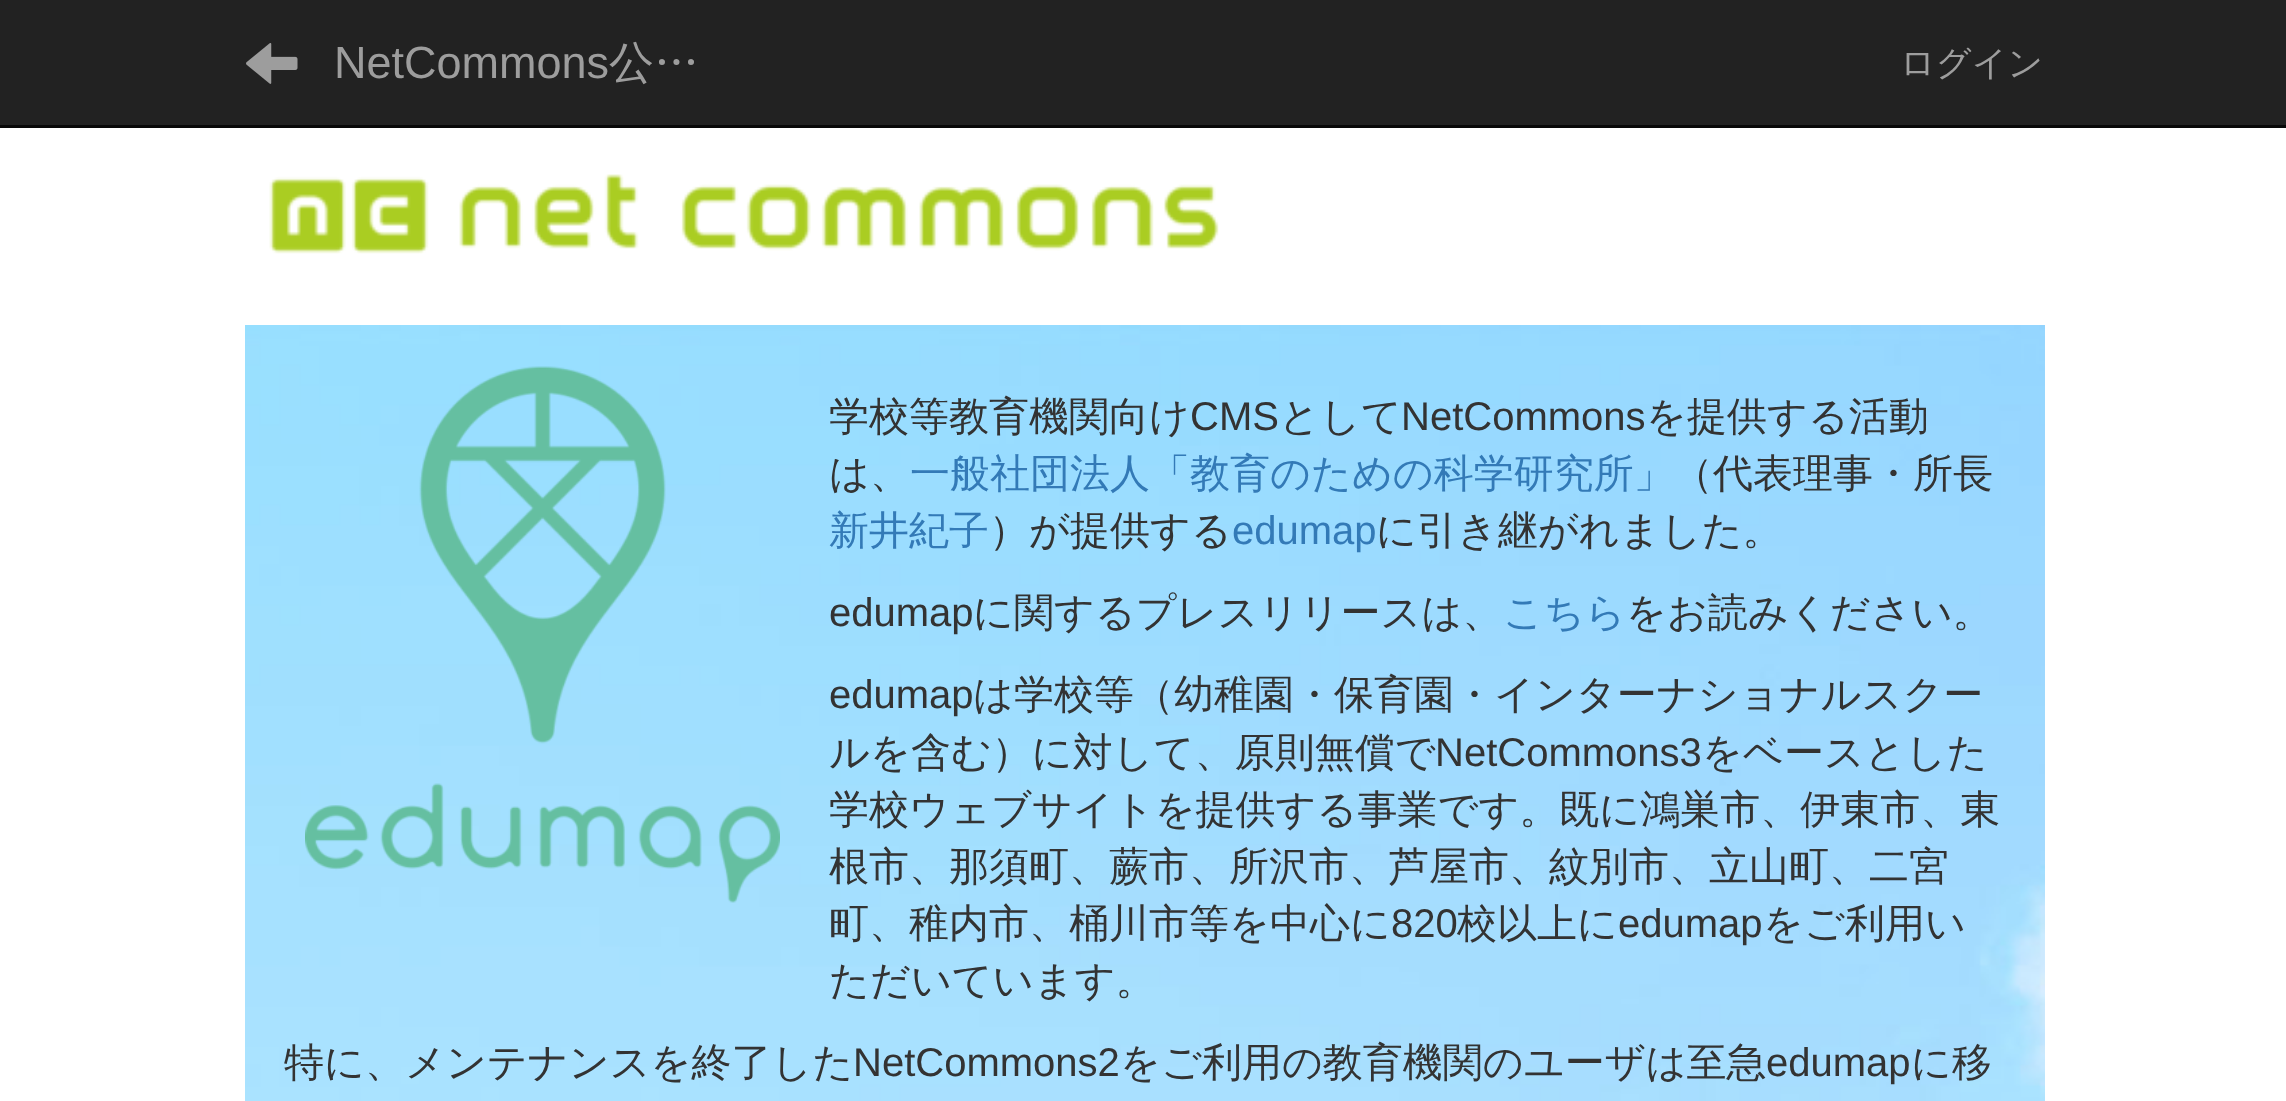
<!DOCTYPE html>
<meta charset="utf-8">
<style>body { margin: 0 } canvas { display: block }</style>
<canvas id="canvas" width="2286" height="1101"></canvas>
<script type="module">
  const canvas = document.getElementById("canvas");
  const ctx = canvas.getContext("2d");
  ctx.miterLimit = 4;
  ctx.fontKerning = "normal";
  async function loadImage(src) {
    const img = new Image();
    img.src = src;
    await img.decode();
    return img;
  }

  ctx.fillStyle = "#ffffff";
  ctx.fillRect(0, 0, 2286, 1101);
  ctx.fillStyle = "#222222";
  ctx.fillRect(0, 0, 2286, 125);
  ctx.fillStyle = "#080808";
  ctx.fillRect(0, 125, 2286, 3);
  ctx.drawImage(await loadImage("img1.png"), 246, 43, 52, 41);
  ctx.font = "45px Liberation Sans";
  ctx.fillStyle = "#9d9d9d";
  ctx.fillText("NetCommons", 334, 78);
  ctx.font = "500 45px WenQuanYi Zen Hei";
  ctx.fillText("公…", 609, 78);
  ctx.font = "500 35px WenQuanYi Zen Hei";
  ctx.fillText("ログイン", 1900, 75);
  ctx.drawImage(await loadImage("img2.png"), 269, 174, 950, 80);
  ctx.drawImage(await loadImage("img3.png"), 245, 325, 1800, 776);
  ctx.drawImage(await loadImage("img4.png"), 305, 366, 475, 537);
  ctx.font = "500 40px WenQuanYi Zen Hei";
  ctx.fillStyle = "#333333";
  ctx.fillText("学校等教育機関向け", 829, 430);
  ctx.font = "40px Liberation Sans";
  ctx.fillText("CMS", 1190, 430);
  ctx.font = "500 40px WenQuanYi Zen Hei";
  ctx.fillText("として", 1279, 430);
  ctx.font = "40px Liberation Sans";
  ctx.fillText("NetCommons", 1401, 430);
  ctx.font = "500 40px WenQuanYi Zen Hei";
  ctx.fillText("を提供する活動", 1646, 430);
  ctx.fillText("は、", 829, 487);
  ctx.fillStyle = "#337ab7";
  ctx.fillText("一般社団法人「教育のための科学研究所」", 910, 487);
  ctx.fillStyle = "#333333";
  ctx.fillText("（代表理事・所長", 1673, 487);
  ctx.fillStyle = "#337ab7";
  ctx.fillText("新井紀子", 829, 544);
  ctx.fillStyle = "#333333";
  ctx.fillText("）が提供する", 989, 544);
  ctx.font = "40px Liberation Sans";
  ctx.fillStyle = "#337ab7";
  ctx.fillText("edumap", 1232, 544);
  ctx.font = "500 40px WenQuanYi Zen Hei";
  ctx.fillStyle = "#333333";
  ctx.fillText("に引き継がれました。", 1376, 544);
  ctx.font = "40px Liberation Sans";
  ctx.fillText("edumap", 829, 626);
  ctx.font = "500 40px WenQuanYi Zen Hei";
  ctx.fillText("に関するプレスリリースは、", 973, 626);
  ctx.fillStyle = "#337ab7";
  ctx.fillText("こちら", 1503, 626);
  ctx.fillStyle = "#333333";
  ctx.fillText("をお読みください。", 1626, 626);
  ctx.font = "40px Liberation Sans";
  ctx.fillText("edumap", 829, 708);
  ctx.font = "500 40px WenQuanYi Zen Hei";
  ctx.fillText("は学校等（幼稚園・保育園・インターナショナルスクー", 973, 708);
  ctx.fillText("ルを含む）に対して、原則無償で", 829, 766);
  ctx.font = "40px Liberation Sans";
  ctx.fillText("NetCommons3", 1435, 766);
  ctx.font = "500 40px WenQuanYi Zen Hei";
  ctx.fillText("をベースとした", 1702, 766);
  ctx.fillText("学校ウェブサイトを提供する事業です。既に鴻巣市、伊東市、東", 829, 823);
  ctx.fillText("根市、那須町、蕨市、所沢市、芦屋市、紋別市、立山町、二宮", 829, 880);
  ctx.fillText("町、稚内市、桶川市等を中心に", 829, 937);
  ctx.font = "40px Liberation Sans";
  ctx.fillText("820", 1391, 937);
  ctx.font = "500 40px WenQuanYi Zen Hei";
  ctx.fillText("校以上に", 1457, 937);
  ctx.font = "40px Liberation Sans";
  ctx.fillText("edumap", 1618, 937);
  ctx.font = "500 40px WenQuanYi Zen Hei";
  ctx.fillText("をご利用い", 1763, 937);
  ctx.fillText("ただいています。", 829, 994);
  ctx.fillText("特に、メンテナンスを終了した", 284, 1076);
  ctx.font = "40px Liberation Sans";
  ctx.fillText("NetCommons2", 853, 1076);
  ctx.font = "500 40px WenQuanYi Zen Hei";
  ctx.fillText("をご利用の教育機関のユーザは至急", 1120, 1076);
  ctx.font = "40px Liberation Sans";
  ctx.fillText("edumap", 1766, 1076);
  ctx.font = "500 40px WenQuanYi Zen Hei";
  ctx.fillText("に移", 1911, 1076);
</script>
